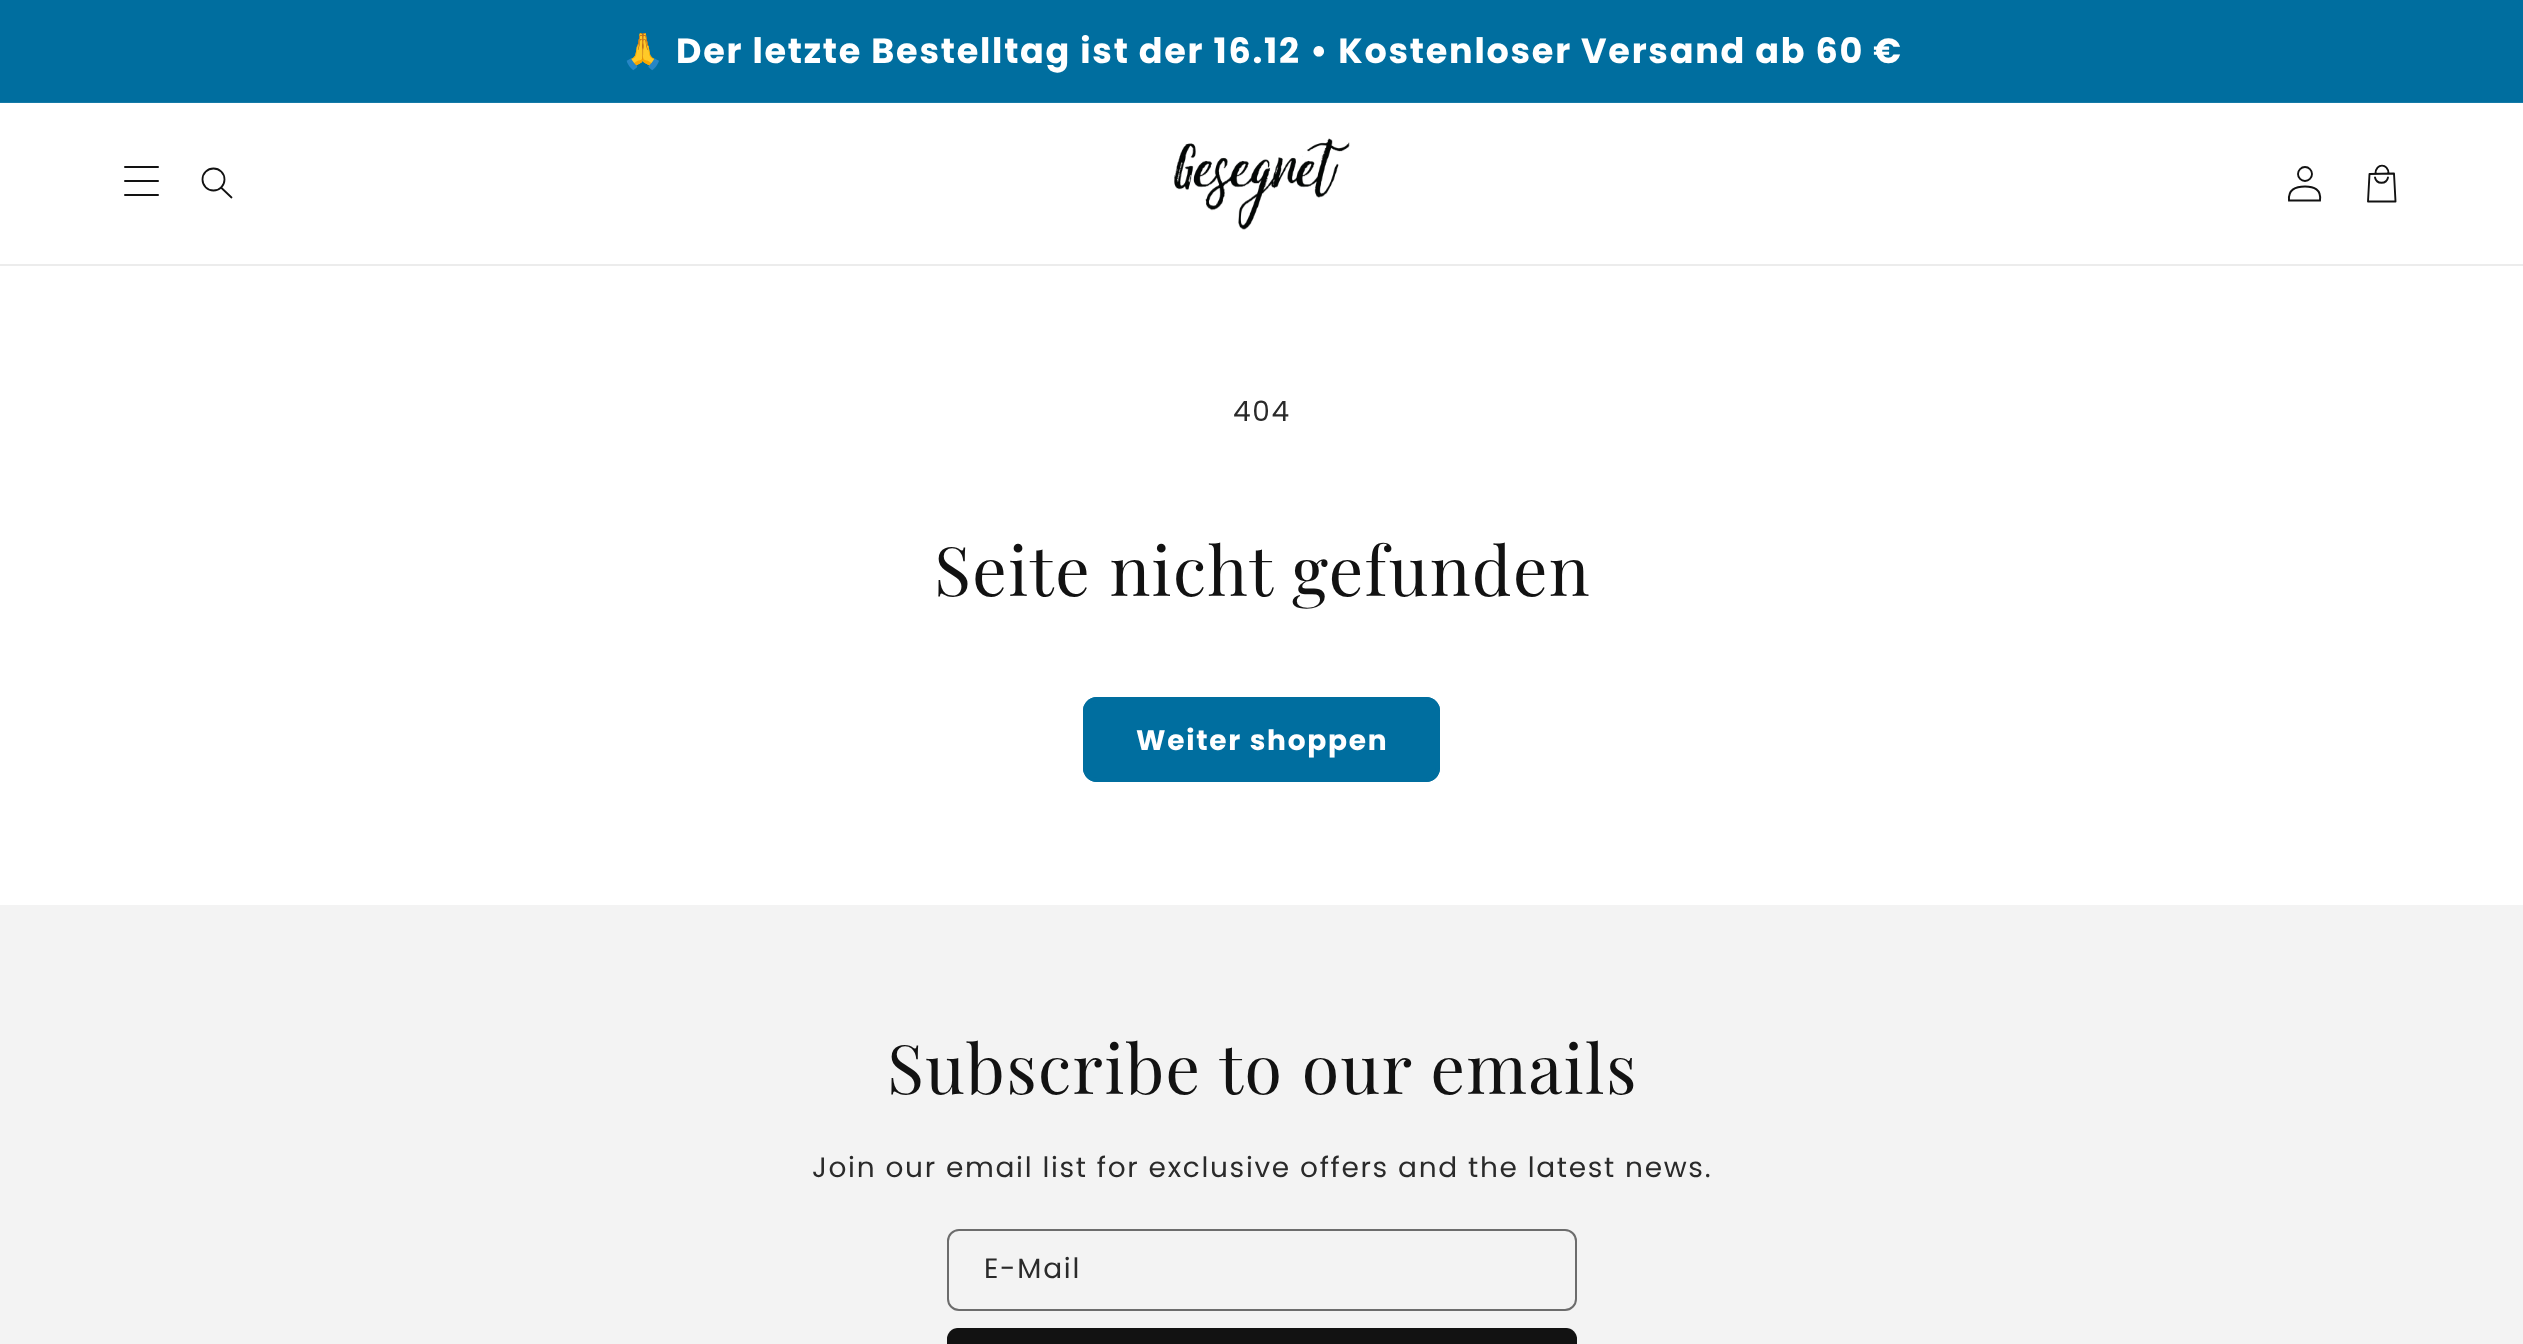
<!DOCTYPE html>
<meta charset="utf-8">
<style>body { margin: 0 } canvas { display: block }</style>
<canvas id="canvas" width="2523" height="1344"></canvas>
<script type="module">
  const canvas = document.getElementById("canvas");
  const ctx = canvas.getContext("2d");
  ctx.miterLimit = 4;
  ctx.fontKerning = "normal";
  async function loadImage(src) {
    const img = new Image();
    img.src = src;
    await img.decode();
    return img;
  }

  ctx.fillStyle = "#ffffff";
  ctx.fillRect(0, 0, 2523, 1344);
  ctx.fillStyle = "#006e9f";
  ctx.fillRect(0, 0, 2523, 102);
  ctx.fillStyle = "#147aa7";
  ctx.fillRect(0, 102, 2523, 1);
  ctx.letterSpacing = "1.75px";
  ctx.font = "bold 35px Noto Color Emoji";
  ctx.fillStyle = "#ffffff";
  ctx.fillText("🙏", 621, 63);
  ctx.font = "bold 35px Poppins";
  ctx.fillText("Der letzte Bestelltag ist der 16.12 • Kostenloser Versand ab 60 €", 676, 63);
  ctx.fillStyle = "#ececec";
  ctx.fillRect(0, 264, 2523, 2);
  ctx.fillStyle = "#121212";
  ctx.beginPath();
  ctx.roundRect(124, 166, 35, 2, 1);
  ctx.fill();
  ctx.beginPath();
  ctx.roundRect(124, 180, 35, 2, 1);
  ctx.fill();
  ctx.beginPath();
  ctx.roundRect(124, 194, 35, 2, 1);
  ctx.fill();
  ctx.beginPath();
  ctx.arc(213.5, 179.5, 11, 0, Math.PI * 2);
  ctx.strokeStyle = "#121212";
  ctx.lineWidth = 1.8;
  ctx.stroke();
  ctx.beginPath();
  ctx.moveTo(231.5, 197.5);
  ctx.lineTo(221, 187.5);
  ctx.lineCap = "round";
  ctx.lineJoin = "round";
  ctx.stroke();
  ctx.drawImage(await loadImage("img1.png"), 1174, 138, 176, 92);
  ctx.beginPath();
  ctx.arc(2305, 174, 7, 0, Math.PI * 2);
  ctx.lineWidth = 1.9;
  ctx.stroke();
  ctx.beginPath();
  ctx.moveTo(2289, 200.5);
  ctx.lineTo(2320, 200.5);
  ctx.bezierCurveTo(2321.5, 189.5, 2314, 186.5, 2305, 186.5);
  ctx.bezierCurveTo(2295.5, 186.5, 2288, 189.5, 2289, 200.5);
  ctx.closePath();
  ctx.lineCap = "butt";
  ctx.lineJoin = "miter";
  ctx.stroke();
  ctx.beginPath();
  ctx.moveTo(2369.5, 174);
  ctx.lineTo(2394, 173.5);
  ctx.lineTo(2395.5, 201.5);
  ctx.lineTo(2368, 201.5);
  ctx.closePath();
  ctx.moveTo(2375.5, 173.5);
  ctx.bezierCurveTo(2375.5, 163, 2388.5, 163, 2388.5, 173.5);
  ctx.moveTo(2375, 177.5);
  ctx.bezierCurveTo(2376.5, 184.5, 2386.5, 184.5, 2388, 177.5);
  ctx.lineCap = "round";
  ctx.lineJoin = "round";
  ctx.stroke();
  ctx.letterSpacing = "1.68px";
  ctx.font = "28px Poppins";
  ctx.fillStyle = "#2a2a2a";
  ctx.fillText("404", 1233, 421);
  ctx.letterSpacing = "1.4px";
  ctx.font = "68.25px Playfair Display";
  ctx.fillStyle = "#121212";
  ctx.fillText("Seite nicht gefunden", 934, 596);
  ctx.fillStyle = "#006e9f";
  ctx.beginPath();
  ctx.roundRect(1083, 697, 357, 85, 14);
  ctx.fill();
  ctx.beginPath();
  ctx.roundRect(1085, 699, 353, 81, 12);
  ctx.strokeStyle = "#006e9f";
  ctx.lineWidth = 4;
  ctx.lineJoin = "miter";
  ctx.stroke();
  ctx.letterSpacing = "1.75px";
  ctx.font = "bold 28px Poppins";
  ctx.fillStyle = "#ffffff";
  ctx.fillText("Weiter shoppen", 1136, 750);
  ctx.fillStyle = "#f3f3f3";
  ctx.fillRect(0, 905, 2523, 439);
  ctx.letterSpacing = "1.4px";
  ctx.font = "68.25px Playfair Display";
  ctx.fillStyle = "#121212";
  ctx.fillText("Subscribe to our emails", 887, 1094);
  ctx.letterSpacing = "1.68px";
  ctx.font = "28px Poppins";
  ctx.fillStyle = "#2a2a2a";
  ctx.fillText("Join our email list for exclusive offers and the latest news.", 812, 1177);
  ctx.beginPath();
  ctx.roundRect(948, 1230, 628, 80, 11);
  ctx.strokeStyle = "#6c6c6c";
  ctx.lineWidth = 2;
  ctx.stroke();
  ctx.letterSpacing = "1.75px";
  ctx.fillText("E-Mail", 984, 1278);
  ctx.beginPath();
  ctx.roundRect(949, 1330, 626, 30, 12);
  ctx.strokeStyle = "#121212";
  ctx.lineWidth = 4;
  ctx.stroke();
  ctx.fillStyle = "#121212";
  ctx.beginPath();
  ctx.roundRect(947, 1328, 630, 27, 11);
  ctx.fill();
</script>
